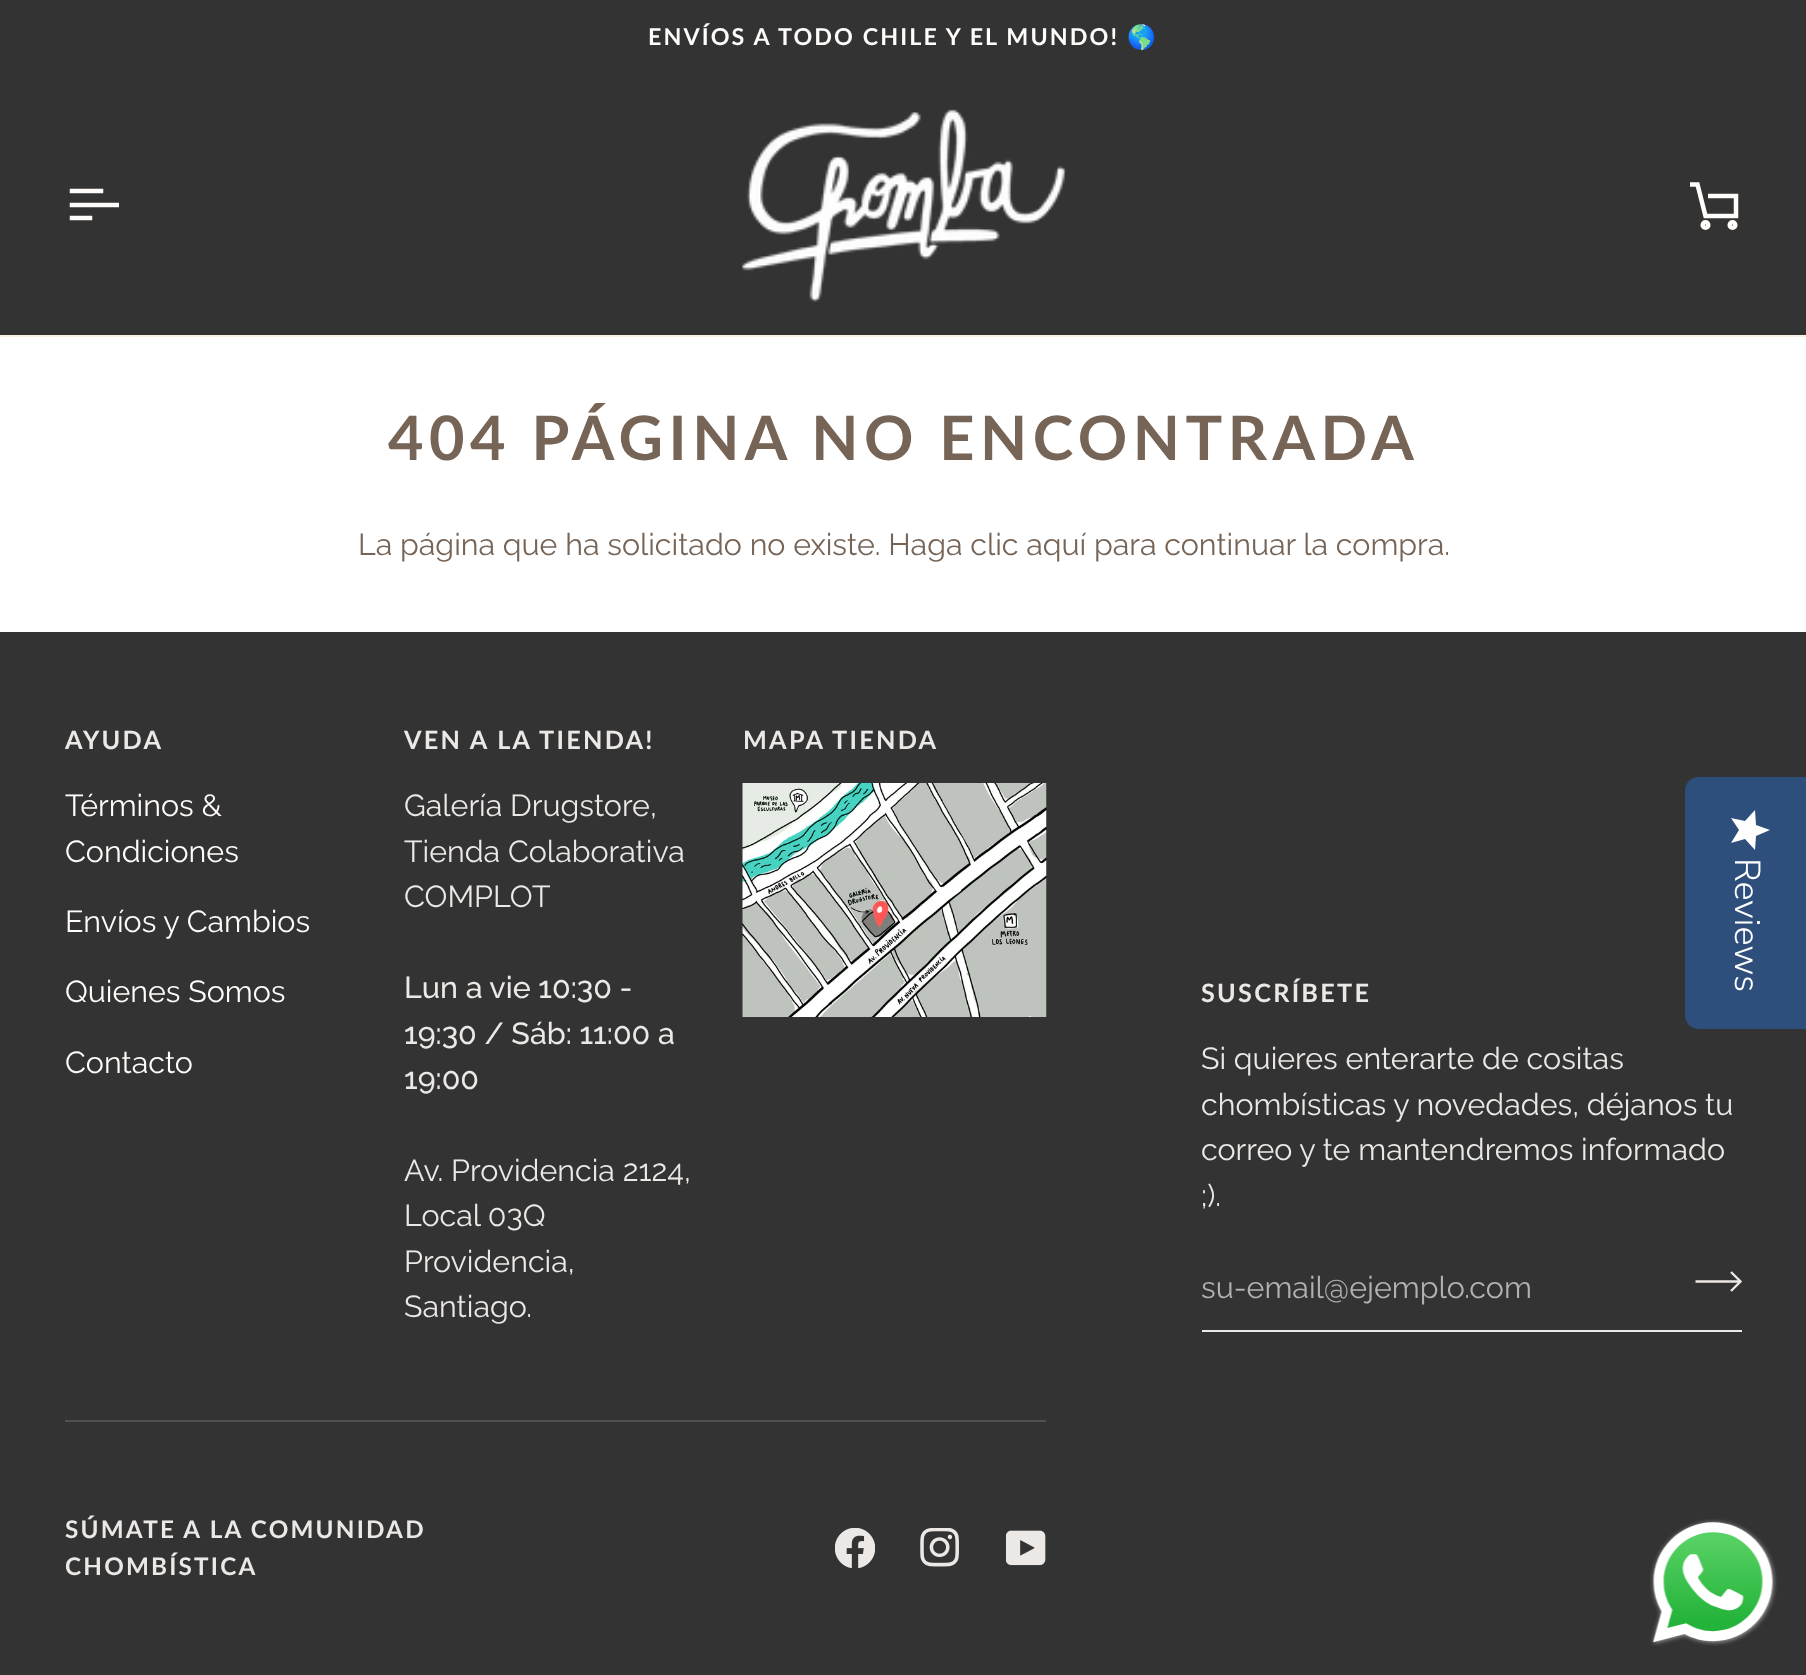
<!DOCTYPE html>
<meta charset="utf-8">
<style>body { margin: 0 } canvas { display: block }</style>
<canvas id="canvas" width="1806" height="1675"></canvas>
<script type="module">
  const canvas = document.getElementById("canvas");
  const ctx = canvas.getContext("2d");
  ctx.miterLimit = 4;
  ctx.fontKerning = "normal";
  async function loadImage(src) {
    const img = new Image();
    img.src = src;
    await img.decode();
    return img;
  }
  let gradient;

  ctx.fillStyle = "#ffffff";
  ctx.fillRect(0, 0, 1806, 1675);
  ctx.fillStyle = "#333333";
  ctx.fillRect(0, 0, 1806, 335);
  ctx.letterSpacing = "2.1px";
  ctx.font = "bold 23.25px Lato";
  ctx.fillStyle = "#fffcf9";
  ctx.fillText("ENVÍOS A TODO CHILE Y EL MUNDO!", 648, 45);
  ctx.font = "bold 23.25px Noto Color Emoji";
  ctx.fillText("🌎", 1127, 45);
  ctx.fillStyle = "#f8f0e7";
  ctx.fillRect(0, 335, 1806, 2);
  ctx.save();
  ctx.beginPath();
  ctx.rect(65, 178, 54, 54);
  ctx.clip();
  ctx.beginPath();
  ctx.moveTo(101, 191);
  ctx.lineTo(72, 191);
  ctx.moveTo(117, 205);
  ctx.lineTo(72, 205);
  ctx.moveTo(90, 218);
  ctx.lineTo(72, 218);
  ctx.strokeStyle = "#fffcf9";
  ctx.lineWidth = 4.5;
  ctx.lineCap = "square";
  ctx.stroke();
  ctx.restore();
  ctx.drawImage(await loadImage("img1.png"), 742, 109, 325, 193);
  ctx.beginPath();
  ctx.moveTo(1690, 184.5);
  ctx.lineTo(1697.5, 184.5);
  ctx.lineTo(1705.5, 216);
  ctx.lineTo(1736, 216);
  ctx.lineTo(1736, 196);
  ctx.lineTo(1708, 196);
  ctx.strokeStyle = "#fffcf9";
  ctx.lineWidth = 4.5;
  ctx.stroke();
  ctx.beginPath();
  ctx.arc(1705.5, 225, 2.8, 0, Math.PI * 2);
  ctx.stroke();
  ctx.beginPath();
  ctx.arc(1732.5, 225, 2.8, 0, Math.PI * 2);
  ctx.stroke();
  ctx.letterSpacing = "5.5px";
  ctx.font = "bold 61.25px Lato";
  ctx.fillStyle = "#766456";
  ctx.fillText("404 PÁGINA NO ENCONTRADA", 388, 460);
  ctx.letterSpacing = "0px";
  ctx.font = "30.4px Raleway";
  ctx.fillText("La página que ha solicitado no existe. Haga clic aquí para continuar la compra.", 358, 555);
  ctx.fillStyle = "#333333";
  ctx.fillRect(0, 632, 1806, 1043);
  ctx.letterSpacing = "2.25px";
  ctx.font = "bold 25.25px Lato";
  ctx.fillStyle = "#ebe8e5";
  ctx.fillText("AYUDA", 65, 749);
  ctx.letterSpacing = "0px";
  ctx.font = "30.4px Raleway";
  ctx.fillStyle = "#fffcf9";
  ctx.fillText("Términos &", 65, 816);
  ctx.fillText("Condiciones", 65, 862);
  ctx.fillText("Envíos y Cambios", 65, 932);
  ctx.fillText("Quienes Somos", 65, 1002);
  ctx.fillText("Contacto", 65, 1073);
  ctx.letterSpacing = "2.25px";
  ctx.font = "bold 25.25px Lato";
  ctx.fillStyle = "#ebe8e5";
  ctx.fillText("VEN A LA TIENDA!", 404, 749);
  ctx.letterSpacing = "0px";
  ctx.font = "30.4px Raleway";
  ctx.fillText("Galería Drugstore,", 404, 816);
  ctx.fillText("Tienda Colaborativa", 404, 862);
  ctx.fillText("COMPLOT", 404, 907);
  ctx.font = "500 30.4px Raleway";
  ctx.fillText("Lun a vie 10:30 -", 404, 998);
  ctx.fillText("19:30 / Sáb: 11:00 a", 404, 1044);
  ctx.fillText("19:00", 404, 1089);
  ctx.font = "30.4px Raleway";
  ctx.fillText("Av. Providencia 2124,", 404, 1181);
  ctx.fillText("Local 03Q", 404, 1226);
  ctx.fillText("Providencia,", 404, 1272);
  ctx.fillText("Santiago.", 404, 1317);
  ctx.letterSpacing = "2.25px";
  ctx.font = "bold 25.25px Lato";
  ctx.fillText("MAPA TIENDA", 743, 749);
  ctx.drawImage(await loadImage("img2.png"), 742, 783, 305, 234);
  ctx.fillStyle = "#525151";
  ctx.fillRect(65, 1420, 981, 2);
  ctx.letterSpacing = "2.2px";
  ctx.font = "bold 24.25px Lato";
  ctx.fillStyle = "#ebe8e5";
  ctx.fillText("SÚMATE A LA COMUNIDAD", 65, 1538);
  ctx.fillText("CHOMBÍSTICA", 65, 1575);
  ctx.drawImage(await loadImage("img3.png"), 835, 1528, 40, 40);
  ctx.drawImage(await loadImage("img4.png"), 920, 1528, 39, 39);
  ctx.drawImage(await loadImage("img5.png"), 1006, 1530, 40, 36);
  ctx.letterSpacing = "2.25px";
  ctx.font = "bold 25.25px Lato";
  ctx.fillText("SUSCRÍBETE", 1201, 1002);
  ctx.letterSpacing = "0px";
  ctx.font = "30.4px Raleway";
  ctx.fillText("Si quieres enterarte de cositas", 1201, 1069);
  ctx.fillText("chombísticas y novedades, déjanos tu", 1201, 1115);
  ctx.fillText("correo y te mantendremos informado", 1201, 1160);
  ctx.fillText(";).", 1201, 1206);
  ctx.fillRect(1202, 1330, 540, 2);
  ctx.fillStyle = "#b4b2b0";
  ctx.fillText("su-email@ejemplo.com", 1201, 1298);
  ctx.beginPath();
  ctx.moveTo(1731, 1272);
  ctx.lineTo(1740.5, 1281.5);
  ctx.lineTo(1731, 1291);
  ctx.moveTo(1695.5, 1281.5);
  ctx.lineTo(1740.5, 1281.5);
  ctx.strokeStyle = "#ebe8e5";
  ctx.lineWidth = 2.4;
  ctx.stroke();
  ctx.fillStyle = "#2e4f7c";
  ctx.beginPath();
  ctx.moveTo(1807, 777);
  ctx.lineTo(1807, 1029);
  ctx.lineTo(1699, 1029);
  ctx.bezierCurveTo(1691, 1029, 1685, 1023, 1685, 1015);
  ctx.lineTo(1685, 791);
  ctx.bezierCurveTo(1685, 783, 1691, 777, 1699, 777);
  ctx.closePath();
  ctx.fill();
  gradient = ctx.createLinearGradient(1770, 810, 1770, 850);
  gradient.addColorStop(1, "#ffffff");
  gradient.addColorStop(1, "#eaeaea");
  ctx.fillStyle = gradient;
  ctx.beginPath();
  ctx.moveTo(1739, 830);
  ctx.lineTo(1731, 843);
  ctx.lineTo(1745, 839);
  ctx.lineTo(1755, 850);
  ctx.lineTo(1756, 836);
  ctx.lineTo(1770, 830);
  ctx.lineTo(1756, 825);
  ctx.lineTo(1755, 810);
  ctx.lineTo(1745, 821);
  ctx.lineTo(1731, 818);
  ctx.closePath();
  ctx.fill();
  ctx.font = "300 36px Nunito Sans";
  ctx.fillStyle = "#ffffff";
  ctx.save();
  ctx.translate(1735, 858);
  ctx.rotate(90 * Math.PI / 180);
  ctx.fillText("Reviews", 0, 0);
  ctx.restore();
  ctx.drawImage(await loadImage("img6.png"), 1650, 1519, 128, 127);
</script>
